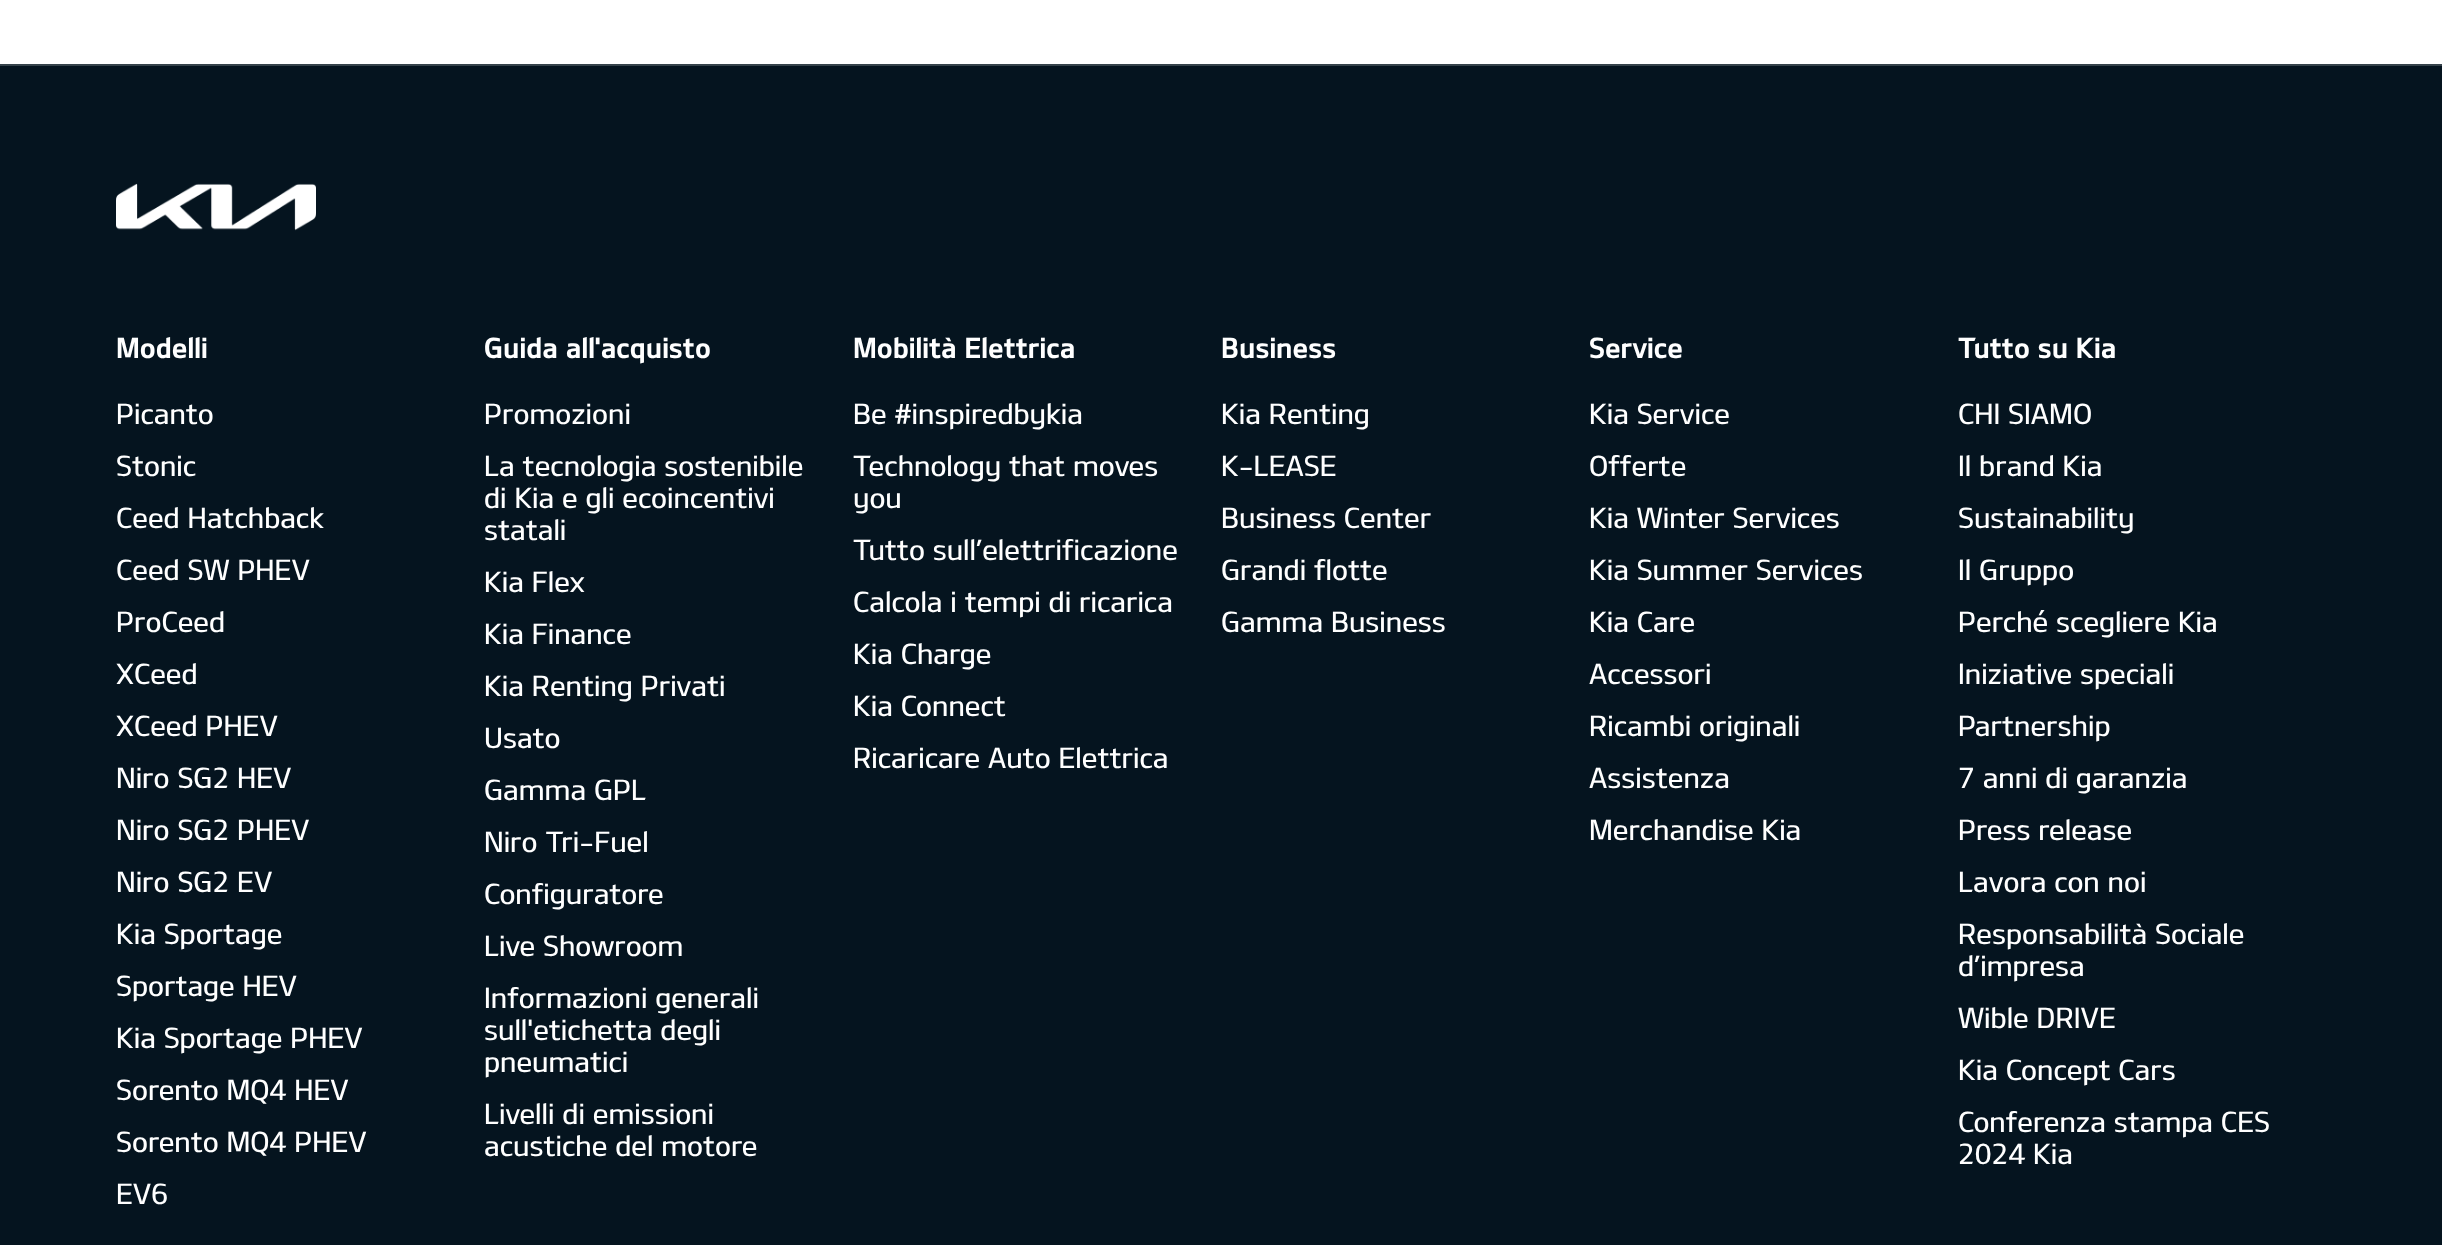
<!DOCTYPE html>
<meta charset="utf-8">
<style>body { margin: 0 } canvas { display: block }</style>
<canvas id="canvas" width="2442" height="1245"></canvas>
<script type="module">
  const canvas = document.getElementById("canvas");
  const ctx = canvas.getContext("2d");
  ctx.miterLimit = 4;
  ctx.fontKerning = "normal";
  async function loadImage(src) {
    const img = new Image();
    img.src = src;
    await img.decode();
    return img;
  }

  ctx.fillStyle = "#ffffff";
  ctx.fillRect(0, 0, 2442, 1245);
  ctx.fillStyle = "#05141f";
  ctx.fillRect(0, 66, 2442, 1179);
  ctx.fillStyle = "#35424a";
  ctx.fillRect(0, 64, 2442, 2);
  ctx.drawImage(await loadImage("img1.png"), 116, 183, 200, 48);
  ctx.font = "28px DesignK";
  ctx.fillStyle = "#ffffff";
  ctx.fillText("Modelli", 116, 358);
  ctx.font = "28px 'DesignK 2'";
  ctx.fillText("Picanto", 116, 424);
  ctx.fillText("Stonic", 116, 476);
  ctx.fillText("Ceed Hatchback", 116, 528);
  ctx.fillText("Ceed SW PHEV", 116, 580);
  ctx.fillText("ProCeed", 116, 632);
  ctx.fillText("XCeed", 116, 684);
  ctx.fillText("XCeed PHEV", 116, 736);
  ctx.fillText("Niro SG2 HEV", 116, 788);
  ctx.fillText("Niro SG2 PHEV", 116, 840);
  ctx.fillText("Niro SG2 EV", 116, 892);
  ctx.fillText("Kia Sportage", 116, 944);
  ctx.fillText("Sportage HEV", 116, 996);
  ctx.fillText("Kia Sportage PHEV", 116, 1048);
  ctx.fillText("Sorento MQ4 HEV", 116, 1100);
  ctx.fillText("Sorento MQ4 PHEV", 116, 1152);
  ctx.fillText("EV6", 116, 1204);
  ctx.font = "28px DesignK";
  ctx.fillText("Guida all'acquisto", 484, 358);
  ctx.font = "28px 'DesignK 2'";
  ctx.fillText("Promozioni", 484, 424);
  ctx.fillText("La tecnologia sostenibile", 484, 476);
  ctx.fillText("di Kia e gli ecoincentivi", 484, 508);
  ctx.fillText("statali", 484, 540);
  ctx.fillText("Kia Flex", 484, 592);
  ctx.fillText("Kia Finance", 484, 644);
  ctx.fillText("Kia Renting Privati", 484, 696);
  ctx.fillText("Usato", 484, 748);
  ctx.fillText("Gamma GPL", 484, 800);
  ctx.fillText("Niro Tri-Fuel", 484, 852);
  ctx.fillText("Configuratore", 484, 904);
  ctx.fillText("Live Showroom", 484, 956);
  ctx.fillText("Informazioni generali", 484, 1008);
  ctx.fillText("sull'etichetta degli", 484, 1040);
  ctx.fillText("pneumatici", 484, 1072);
  ctx.fillText("Livelli di emissioni", 484, 1124);
  ctx.fillText("acustiche del motore", 484, 1156);
  ctx.font = "28px DesignK";
  ctx.fillText("Mobilità Elettrica", 853, 358);
  ctx.font = "28px 'DesignK 2'";
  ctx.fillText("Be #inspiredbykia", 853, 424);
  ctx.fillText("Technology that moves", 853, 476);
  ctx.fillText("you", 853, 508);
  ctx.fillText("Tutto sull’elettrificazione", 853, 560);
  ctx.fillText("Calcola i tempi di ricarica", 853, 612);
  ctx.fillText("Kia Charge", 853, 664);
  ctx.fillText("Kia Connect", 853, 716);
  ctx.fillText("Ricaricare Auto Elettrica", 853, 768);
  ctx.font = "28px DesignK";
  ctx.fillText("Business", 1221, 358);
  ctx.font = "28px 'DesignK 2'";
  ctx.fillText("Kia Renting", 1221, 424);
  ctx.fillText("K-LEASE", 1221, 476);
  ctx.fillText("Business Center", 1221, 528);
  ctx.fillText("Grandi flotte", 1221, 580);
  ctx.fillText("Gamma Business", 1221, 632);
  ctx.font = "28px DesignK";
  ctx.fillText("Service", 1589, 358);
  ctx.font = "28px 'DesignK 2'";
  ctx.fillText("Kia Service", 1589, 424);
  ctx.fillText("Offerte", 1589, 476);
  ctx.fillText("Kia Winter Services", 1589, 528);
  ctx.fillText("Kia Summer Services", 1589, 580);
  ctx.fillText("Kia Care", 1589, 632);
  ctx.fillText("Accessori", 1589, 684);
  ctx.fillText("Ricambi originali", 1589, 736);
  ctx.fillText("Assistenza", 1589, 788);
  ctx.fillText("Merchandise Kia", 1589, 840);
  ctx.font = "28px DesignK";
  ctx.fillText("Tutto su Kia", 1958, 358);
  ctx.font = "28px 'DesignK 2'";
  ctx.fillText("CHI SIAMO", 1958, 424);
  ctx.fillText("Il brand Kia", 1958, 476);
  ctx.fillText("Sustainability", 1958, 528);
  ctx.fillText("Il Gruppo", 1958, 580);
  ctx.fillText("Perché scegliere Kia", 1958, 632);
  ctx.fillText("Iniziative speciali", 1958, 684);
  ctx.fillText("Partnership", 1958, 736);
  ctx.fillText("7 anni di garanzia", 1958, 788);
  ctx.fillText("Press release", 1958, 840);
  ctx.fillText("Lavora con noi", 1958, 892);
  ctx.fillText("Responsabilità Sociale", 1958, 944);
  ctx.fillText("d’impresa", 1958, 976);
  ctx.fillText("Wible DRIVE", 1958, 1028);
  ctx.fillText("Kia Concept Cars", 1958, 1080);
  ctx.fillText("Conferenza stampa CES", 1958, 1132);
  ctx.fillText("2024 Kia", 1958, 1164);
</script>
